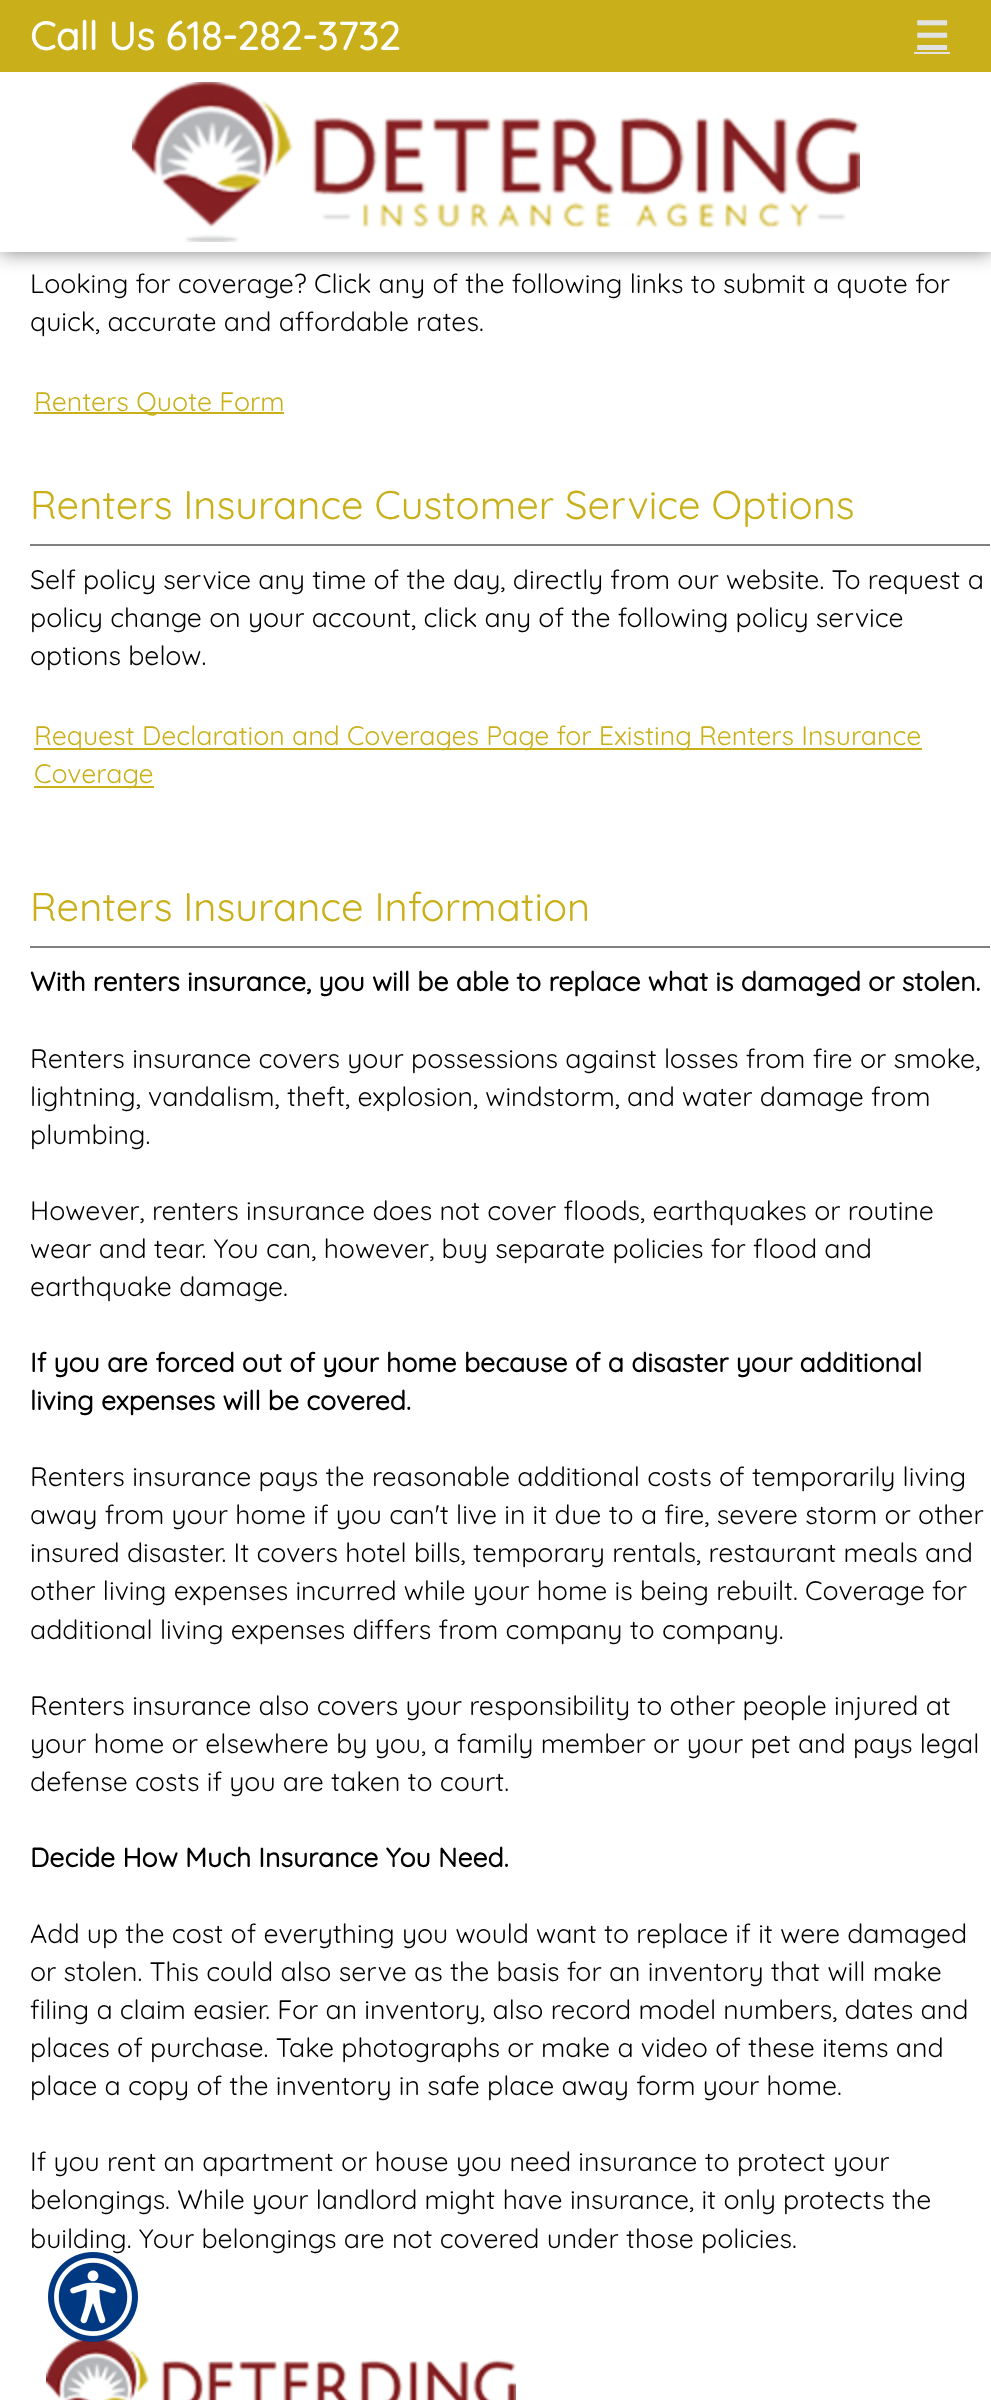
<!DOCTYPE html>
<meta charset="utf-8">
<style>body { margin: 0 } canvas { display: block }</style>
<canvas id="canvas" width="991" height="2400"></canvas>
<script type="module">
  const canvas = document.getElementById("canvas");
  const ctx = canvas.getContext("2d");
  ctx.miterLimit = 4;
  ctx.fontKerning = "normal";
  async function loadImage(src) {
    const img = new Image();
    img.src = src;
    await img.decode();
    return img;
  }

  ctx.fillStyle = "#ffffff";
  ctx.fillRect(0, 0, 991, 2400);
  ctx.fillStyle = "rgba(0, 0, 0, 0.5)";
  ctx.filter = "blur(10px)";
  ctx.beginPath();
  ctx.rect(0, 0, 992, 252);
  ctx.fill();
  ctx.filter = "none";
  ctx.fillStyle = "#ffffff";
  ctx.fillRect(0, 72, 991, 180);
  ctx.fillStyle = "#c9b01a";
  ctx.fillRect(0, 0, 991, 72);
  ctx.font = "bold 39.25px Quicksand";
  ctx.fillStyle = "#ffffff";
  ctx.fillText("Call Us 618-282-3732", 30, 50);
  ctx.font = "bold 39.25px DejaVu Sans";
  ctx.fillStyle = "#e2e2e2";
  ctx.fillText("☰", 914, 50);
  ctx.fillRect(914, 52, 36, 2);
  ctx.drawImage(await loadImage("img1.png"), 132, 82, 728, 160);
  ctx.font = "300 26.65px Quicksand";
  ctx.fillStyle = "#000000";
  ctx.fillText("Looking for coverage? Click any of the following links to submit a quote for", 30, 293);
  ctx.fillText("quick, accurate and affordable rates.", 30, 331);
  ctx.fillStyle = "#c9b01a";
  ctx.fillRect(34, 412, 250, 2);
  ctx.fillText("Renters Quote Form", 34, 411);
  ctx.fillStyle = "#808080";
  ctx.fillRect(30, 544, 960, 2);
  ctx.font = "300 40px Quicksand";
  ctx.fillStyle = "#c9b01a";
  ctx.fillText("Renters Insurance Customer Service Options", 30, 519);
  ctx.font = "300 26.65px Quicksand";
  ctx.fillStyle = "#000000";
  ctx.fillText("Self policy service any time of the day, directly from our website. To request a", 30, 589);
  ctx.fillText("policy change on your account, click any of the following policy service", 30, 627);
  ctx.fillText("options below.", 30, 665);
  ctx.fillStyle = "#c9b01a";
  ctx.fillRect(34, 748, 888, 2);
  ctx.fillText("Request Declaration and Coverages Page for Existing Renters Insurance", 34, 745);
  ctx.fillRect(34, 786, 120, 2);
  ctx.fillText("Coverage", 34, 783);
  ctx.fillStyle = "#808080";
  ctx.fillRect(30, 946, 960, 2);
  ctx.font = "300 40px Quicksand";
  ctx.fillStyle = "#c9b01a";
  ctx.fillText("Renters Insurance Information", 30, 921);
  ctx.font = "bold 26.65px Quicksand";
  ctx.fillStyle = "#000000";
  ctx.fillText("With renters insurance, you will be able to replace what is damaged or stolen.", 30, 991);
  ctx.font = "300 26.65px Quicksand";
  ctx.fillText("Renters insurance covers your possessions against losses from fire or smoke,", 30, 1068);
  ctx.fillText("lightning, vandalism, theft, explosion, windstorm, and water damage from", 30, 1106);
  ctx.fillText("plumbing.", 30, 1144);
  ctx.fillText("However, renters insurance does not cover floods, earthquakes or routine", 30, 1220);
  ctx.fillText("wear and tear. You can, however, buy separate policies for flood and", 30, 1258);
  ctx.fillText("earthquake damage.", 30, 1296);
  ctx.font = "bold 26.65px Quicksand";
  ctx.fillText("If you are forced out of your home because of a disaster your additional", 30, 1372);
  ctx.fillText("living expenses will be covered.", 30, 1410);
  ctx.font = "300 26.65px Quicksand";
  ctx.fillText("Renters insurance pays the reasonable additional costs of temporarily living", 30, 1486);
  ctx.fillText("away from your home if you can't live in it due to a fire, severe storm or other", 30, 1524);
  ctx.fillText("insured disaster. It covers hotel bills, temporary rentals, restaurant meals and", 30, 1562);
  ctx.fillText("other living expenses incurred while your home is being rebuilt. Coverage for", 30, 1600);
  ctx.fillText("additional living expenses differs from company to company.", 30, 1639);
  ctx.fillText("Renters insurance also covers your responsibility to other people injured at", 30, 1715);
  ctx.fillText("your home or elsewhere by you, a family member or your pet and pays legal", 30, 1753);
  ctx.fillText("defense costs if you are taken to court.", 30, 1791);
  ctx.font = "bold 26.65px Quicksand";
  ctx.fillText("Decide How Much Insurance You Need.", 30, 1867);
  ctx.font = "300 26.65px Quicksand";
  ctx.fillText("Add up the cost of everything you would want to replace if it were damaged", 30, 1943);
  ctx.fillText("or stolen. This could also serve as the basis for an inventory that will make", 30, 1981);
  ctx.fillText("filing a claim easier. For an inventory, also record model numbers, dates and", 30, 2019);
  ctx.fillText("places of purchase. Take photographs or make a video of these items and", 30, 2057);
  ctx.fillText("place a copy of the inventory in safe place away form your home.", 30, 2095);
  ctx.fillText("If you rent an apartment or house you need insurance to protect your", 30, 2171);
  ctx.fillText("belongings. While your landlord might have insurance, it only protects the", 30, 2209);
  ctx.fillText("building. Your belongings are not covered under those policies.", 30, 2248);
  ctx.drawImage(await loadImage("img2.png"), 46, 2339, 470, 61);
  ctx.drawImage(await loadImage("img3.png"), 48, 2252, 90, 90);
</script>
